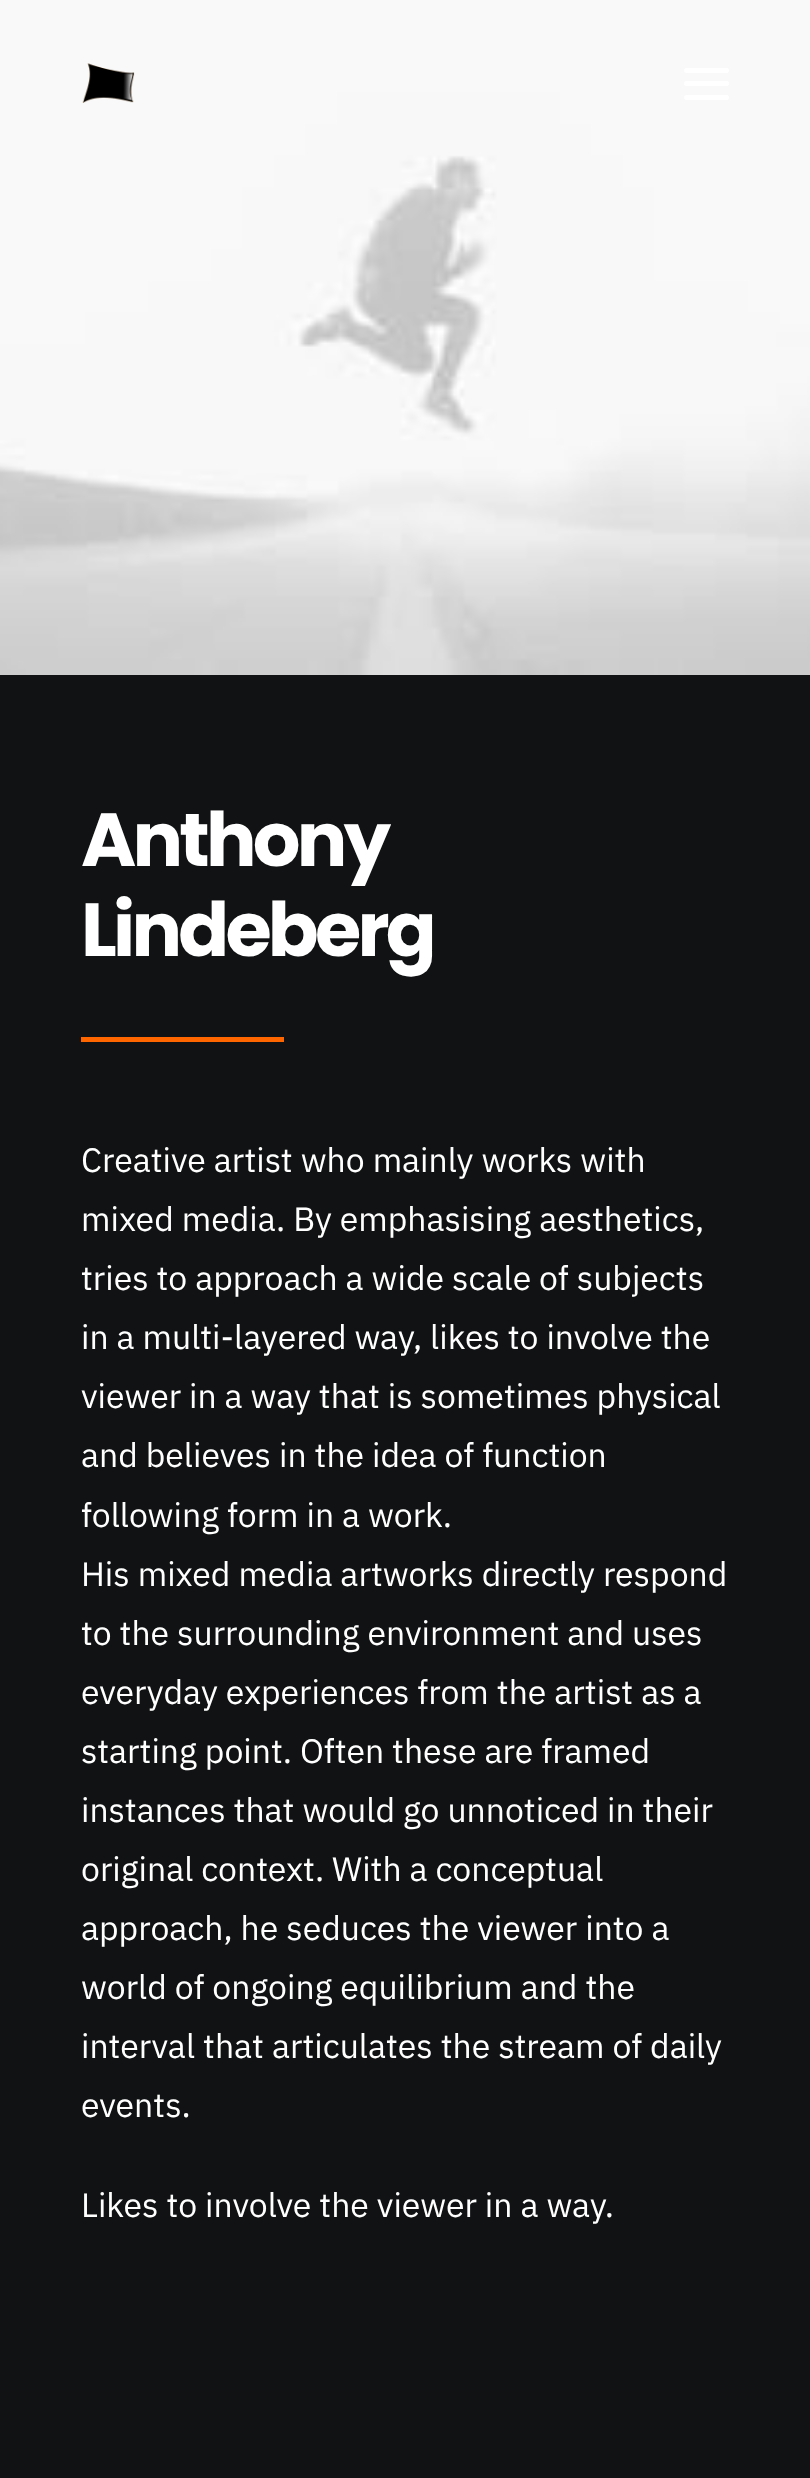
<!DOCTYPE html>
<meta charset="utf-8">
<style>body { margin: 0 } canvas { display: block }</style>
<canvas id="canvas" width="810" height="2478"></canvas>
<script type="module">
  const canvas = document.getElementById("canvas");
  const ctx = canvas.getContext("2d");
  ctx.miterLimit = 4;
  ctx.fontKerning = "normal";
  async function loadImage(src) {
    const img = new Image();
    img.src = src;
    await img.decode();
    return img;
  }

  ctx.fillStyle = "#101213";
  ctx.fillRect(0, 0, 810, 2478);
  ctx.drawImage(await loadImage("img2.png"), 0, 0, 810, 675);
  ctx.drawImage(await loadImage("img1.png"), 82, 63, 53, 40);
  ctx.fillStyle = "#ffffff";
  ctx.beginPath();
  ctx.roundRect(684, 81, 45, 5, 2.5);
  ctx.fill();
  ctx.beginPath();
  ctx.roundRect(684, 68, 45, 5, 2.5);
  ctx.fill();
  ctx.beginPath();
  ctx.roundRect(684, 95, 45, 5, 2.5);
  ctx.fill();
  ctx.letterSpacing = "-3.75px";
  ctx.font = "bold 75px Poppins";
  ctx.fillText("Anthony", 81, 866);
  ctx.fillText("Lindeberg", 81, 956);
  ctx.fillStyle = "#ff6600";
  ctx.fillRect(81, 1037, 203, 5);
  ctx.letterSpacing = "0px";
  ctx.font = "33.75px IBM Plex Sans";
  ctx.fillStyle = "#ffffff";
  ctx.fillText("Creative artist who mainly works with", 81, 1172);
  ctx.fillText("mixed media. By emphasising aesthetics,", 81, 1231);
  ctx.fillText("tries to approach a wide scale of subjects", 81, 1290);
  ctx.fillText("in a multi-layered way, likes to involve the", 81, 1349);
  ctx.fillText("viewer in a way that is sometimes physical", 81, 1408);
  ctx.fillText("and believes in the idea of function", 81, 1467);
  ctx.fillText("following form in a work.", 81, 1527);
  ctx.fillText("His mixed media artworks directly respond", 81, 1586);
  ctx.fillText("to the surrounding environment and uses", 81, 1645);
  ctx.fillText("everyday experiences from the artist as a", 81, 1704);
  ctx.fillText("starting point. Often these are framed", 81, 1763);
  ctx.fillText("instances that would go unnoticed in their", 81, 1822);
  ctx.fillText("original context. With a conceptual", 81, 1881);
  ctx.fillText("approach, he seduces the viewer into a", 81, 1940);
  ctx.fillText("world of ongoing equilibrium and the", 81, 1999);
  ctx.fillText("interval that articulates the stream of daily", 81, 2058);
  ctx.fillText("events.", 81, 2117);
  ctx.fillText("Likes to involve the viewer in a way.", 81, 2217);
</script>
